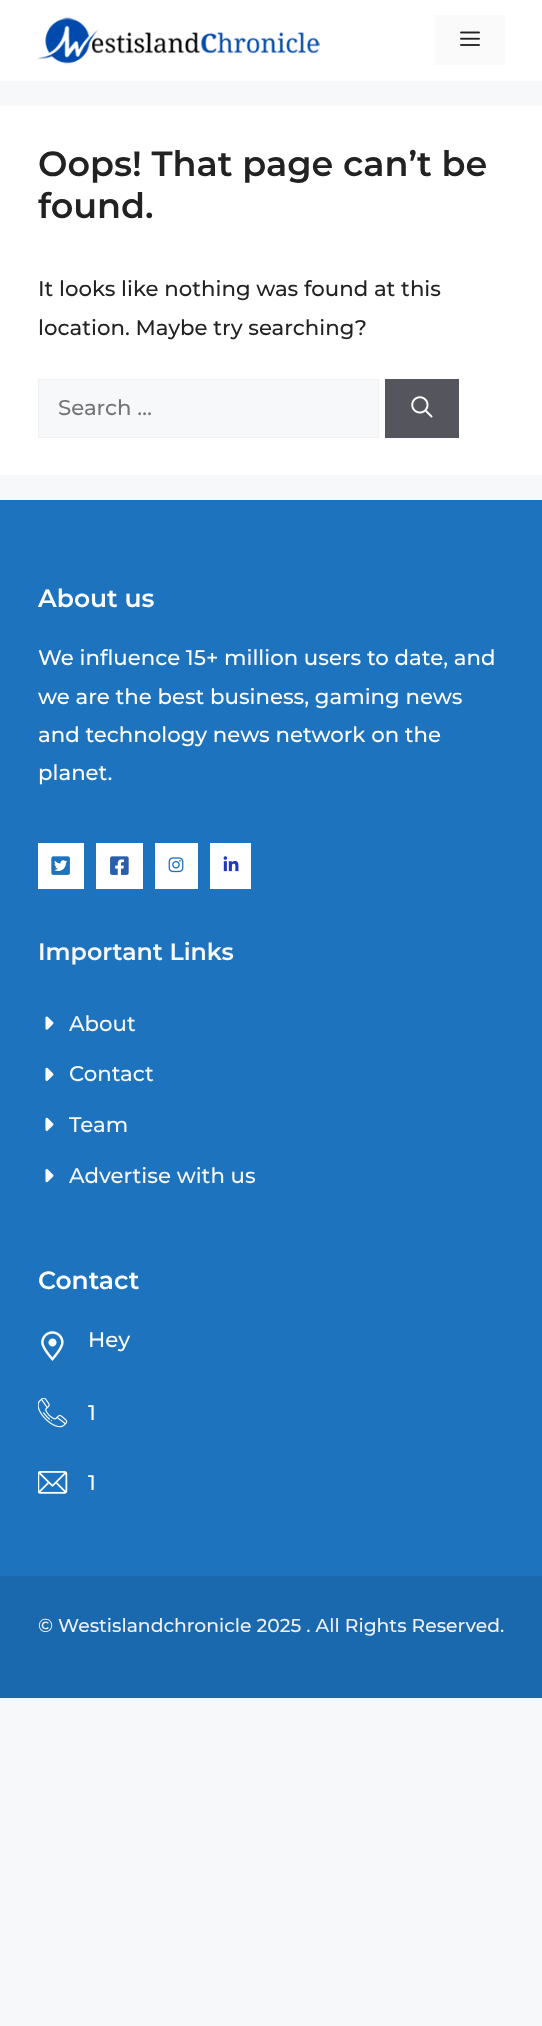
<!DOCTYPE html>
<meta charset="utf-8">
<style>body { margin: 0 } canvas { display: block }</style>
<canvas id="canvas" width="542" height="2026"></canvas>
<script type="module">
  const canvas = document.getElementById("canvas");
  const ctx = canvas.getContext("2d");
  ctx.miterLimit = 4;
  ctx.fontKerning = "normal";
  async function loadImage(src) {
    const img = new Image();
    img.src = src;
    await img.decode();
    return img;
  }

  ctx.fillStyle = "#f7f8f9";
  ctx.fillRect(0, 0, 542, 2026);
  ctx.fillStyle = "#ffffff";
  ctx.fillRect(0, 0, 542, 81);
  ctx.drawImage(await loadImage("img1.png"), 37, 17, 283, 48);
  ctx.fillStyle = "#fafafa";
  ctx.fillRect(435, 15, 70, 50);
  ctx.drawImage(await loadImage("img2.png"), 460, 31, 20, 15);
  ctx.fillStyle = "#ffffff";
  ctx.fillRect(0, 106, 542, 369);
  ctx.font = "600 35px Montserrat";
  ctx.fillStyle = "#222222";
  ctx.fillText("Oops! That page can’t be", 38, 176);
  ctx.fillText("found.", 38, 218);
  ctx.font = "500 21.25px Montserrat";
  ctx.fillText("It looks like nothing was found at this", 38, 296);
  ctx.fillText("location. Maybe try searching?", 38, 335);
  ctx.fillStyle = "#f7f8f9";
  ctx.beginPath();
  ctx.rect(38.5, 379.5, 340, 58);
  ctx.fill();
  ctx.strokeStyle = "#f0f0f0";
  ctx.stroke();
  ctx.fillStyle = "#757575";
  ctx.fillText("Search …", 58, 415);
  ctx.fillStyle = "#55555e";
  ctx.fillRect(385, 379, 74, 59);
  ctx.drawImage(await loadImage("img3.png"), 411, 396, 22, 22);
  ctx.fillStyle = "#1e73be";
  ctx.fillRect(0, 500, 542, 1076);
  ctx.font = "600 25px Montserrat";
  ctx.fillStyle = "#ffffff";
  ctx.fillText("About us", 38, 607);
  ctx.font = "500 21.25px Montserrat";
  ctx.fillText("We influence 15+ million users to date, and", 38, 665);
  ctx.fillText("we are the best business, gaming news", 38, 704);
  ctx.fillText("and technology news network on the", 38, 742);
  ctx.fillText("planet.", 38, 780);
  ctx.fillRect(38, 843, 46, 46);
  ctx.drawImage(await loadImage("img4.png"), 51, 856, 19, 19);
  ctx.fillRect(96, 843, 47, 46);
  ctx.drawImage(await loadImage("img5.png"), 110, 856, 19, 19);
  ctx.fillRect(155, 843, 43, 46);
  ctx.drawImage(await loadImage("img6.png"), 168, 857, 16, 16);
  ctx.fillRect(210, 843, 41, 46);
  ctx.drawImage(await loadImage("img7.png"), 223, 856, 16, 16);
  ctx.font = "600 23.75px Montserrat";
  ctx.fillStyle = "#f7f8f9";
  ctx.fillText("Important Links", 38, 960);
  ctx.drawImage(await loadImage("img8.png"), 45, 1016, 9, 14);
  ctx.font = "500 21.25px Montserrat";
  ctx.fillText("About", 69, 1031);
  ctx.drawImage(await loadImage("img9.png"), 45, 1067, 9, 14);
  ctx.fillText("Contact", 69, 1081);
  ctx.drawImage(await loadImage("img9.png"), 45, 1117, 9, 14);
  ctx.fillText("Team", 69, 1132);
  ctx.drawImage(await loadImage("img10.png"), 45, 1169, 9, 14);
  ctx.fillText("Advertise with us", 69, 1183);
  ctx.font = "600 25px Montserrat";
  ctx.fillStyle = "#ffffff";
  ctx.fillText("Contact", 38, 1289);
  ctx.drawImage(await loadImage("img11.png"), 41, 1331, 23, 30);
  ctx.font = "500 21.25px Montserrat";
  ctx.fillText("Hey", 88, 1347);
  ctx.drawImage(await loadImage("img12.png"), 38, 1398, 30, 30);
  ctx.fillText("1", 88, 1420);
  ctx.drawImage(await loadImage("img13.png"), 38, 1471, 30, 23);
  ctx.fillText("1", 88, 1490);
  ctx.fillStyle = "#1a69af";
  ctx.fillRect(0, 1576, 542, 122);
  ctx.font = "500 18.75px Montserrat";
  ctx.fillStyle = "#f0f0f0";
  ctx.fillText("© Westislandchronicle 2025 . All Rights Reserved.", 38, 1632);
</script>
